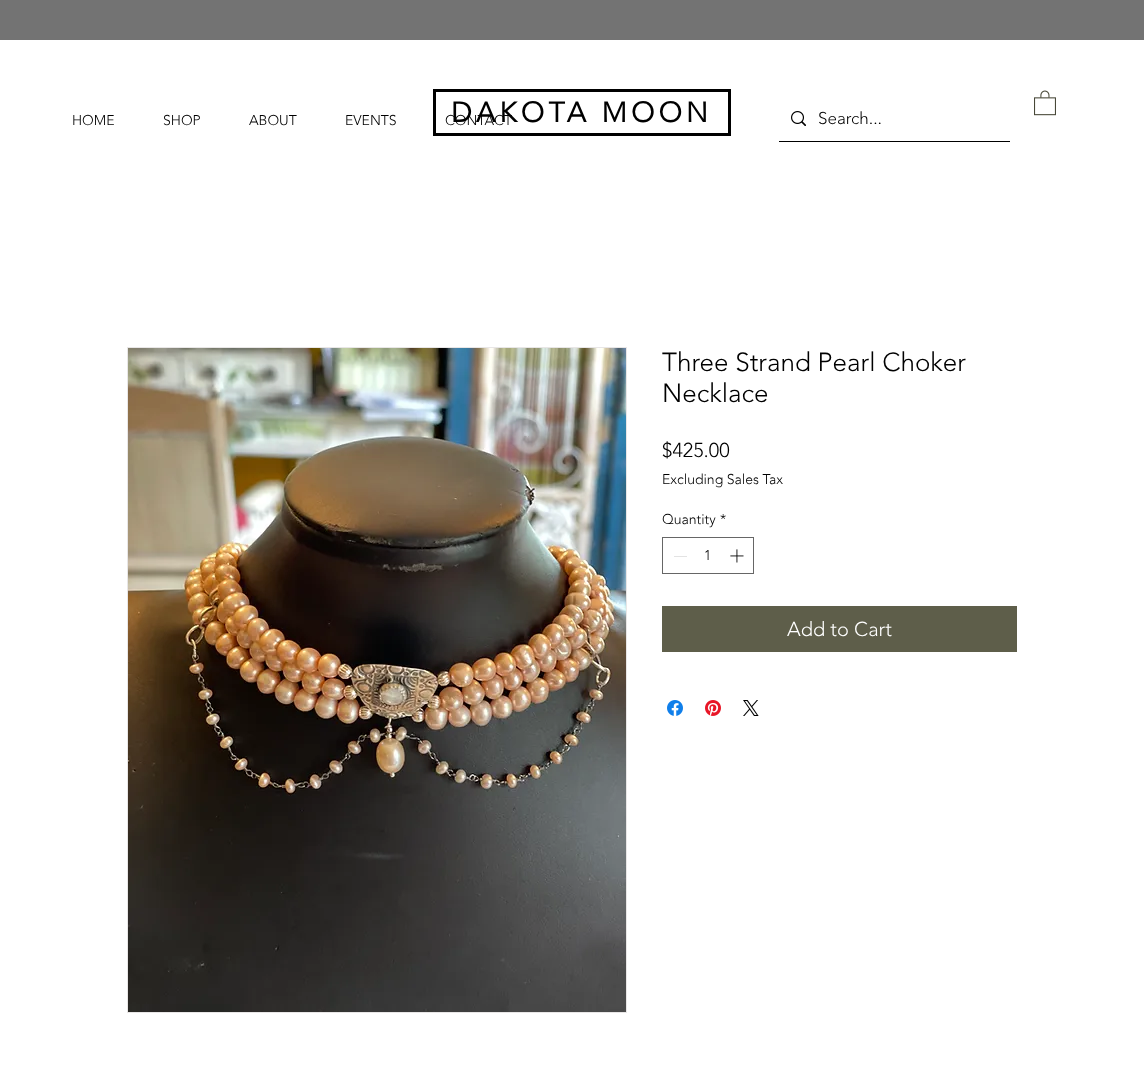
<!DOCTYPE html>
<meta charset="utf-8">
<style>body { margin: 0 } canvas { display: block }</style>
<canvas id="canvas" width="1144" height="1076"></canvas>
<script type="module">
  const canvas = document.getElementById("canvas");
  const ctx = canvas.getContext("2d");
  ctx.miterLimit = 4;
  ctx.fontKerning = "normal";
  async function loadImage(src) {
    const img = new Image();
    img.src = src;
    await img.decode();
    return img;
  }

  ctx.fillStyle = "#ffffff";
  ctx.fillRect(0, 0, 1144, 1076);
  ctx.fillStyle = "#737373";
  ctx.fillRect(0, 0, 1144, 40);
  ctx.font = "300 14px 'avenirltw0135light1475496'";
  ctx.fillStyle = "#000000";
  ctx.fillText("HOME", 72, 125);
  ctx.fillText("SHOP", 163, 125);
  ctx.fillText("ABOUT", 249, 125);
  ctx.fillText("EVENTS", 345, 125);
  ctx.fillText("CONTACT", 445, 125);
  ctx.strokeStyle = "#000000";
  ctx.lineWidth = 3;
  ctx.strokeRect(434.5, 90.5, 295, 44);
  ctx.letterSpacing = "4.25px";
  ctx.font = "bold 28px 'avenirltw0135light1475496'";
  ctx.fillText("DAKOTA MOON", 451, 122);
  ctx.drawImage(await loadImage("img1.png"), 1034, 90, 22, 26);
  ctx.fillRect(779, 141, 231, 1);
  ctx.drawImage(await loadImage("img2.png"), 791, 111, 15, 15);
  ctx.letterSpacing = "0px";
  ctx.font = "300 17px 'avenirltw0135light1475496'";
  ctx.fillText("Search...", 818, 124);
  ctx.strokeStyle = "#e8e6e6";
  ctx.lineWidth = 1;
  ctx.strokeRect(127.5, 347.5, 499, 665);
  ctx.drawImage(await loadImage("img3.png"), 128, 348, 498, 664);
  ctx.font = "300 26px 'avenirltw0135light1475496'";
  ctx.fillText("Three Strand Pearl Choker", 662, 371);
  ctx.fillText("Necklace", 662, 402);
  ctx.font = "300 20px 'avenirltw0135light1475496'";
  ctx.fillText("$425.00", 662, 457);
  ctx.font = "300 14px 'avenirltw0135light1475496'";
  ctx.fillText("Excluding Sales Tax", 662, 484);
  ctx.fillText("Quantity", 662, 524);
  ctx.fillText("*", 720, 524);
  ctx.strokeStyle = "#666666";
  ctx.strokeRect(662.5, 537.5, 91, 36);
  ctx.fillStyle = "#e3e3e3";
  ctx.fillRect(674, 556, 13, 1);
  ctx.fillStyle = "#000000";
  ctx.fillText("1", 704, 560);
  ctx.drawImage(await loadImage("img4.png"), 730, 549, 14, 14);
  ctx.fillStyle = "#5e5e4a";
  ctx.fillRect(662, 606, 355, 46);
  ctx.font = "300 20px 'avenirltw0135light1475496'";
  ctx.fillStyle = "#ffffff";
  ctx.fillText("Add to Cart", 787, 636);
  ctx.drawImage(await loadImage("img5.png"), 667, 700, 16, 16);
  ctx.drawImage(await loadImage("img6.png"), 705, 700, 16, 16);
  ctx.drawImage(await loadImage("img7.png"), 743, 700, 16, 16);
</script>
